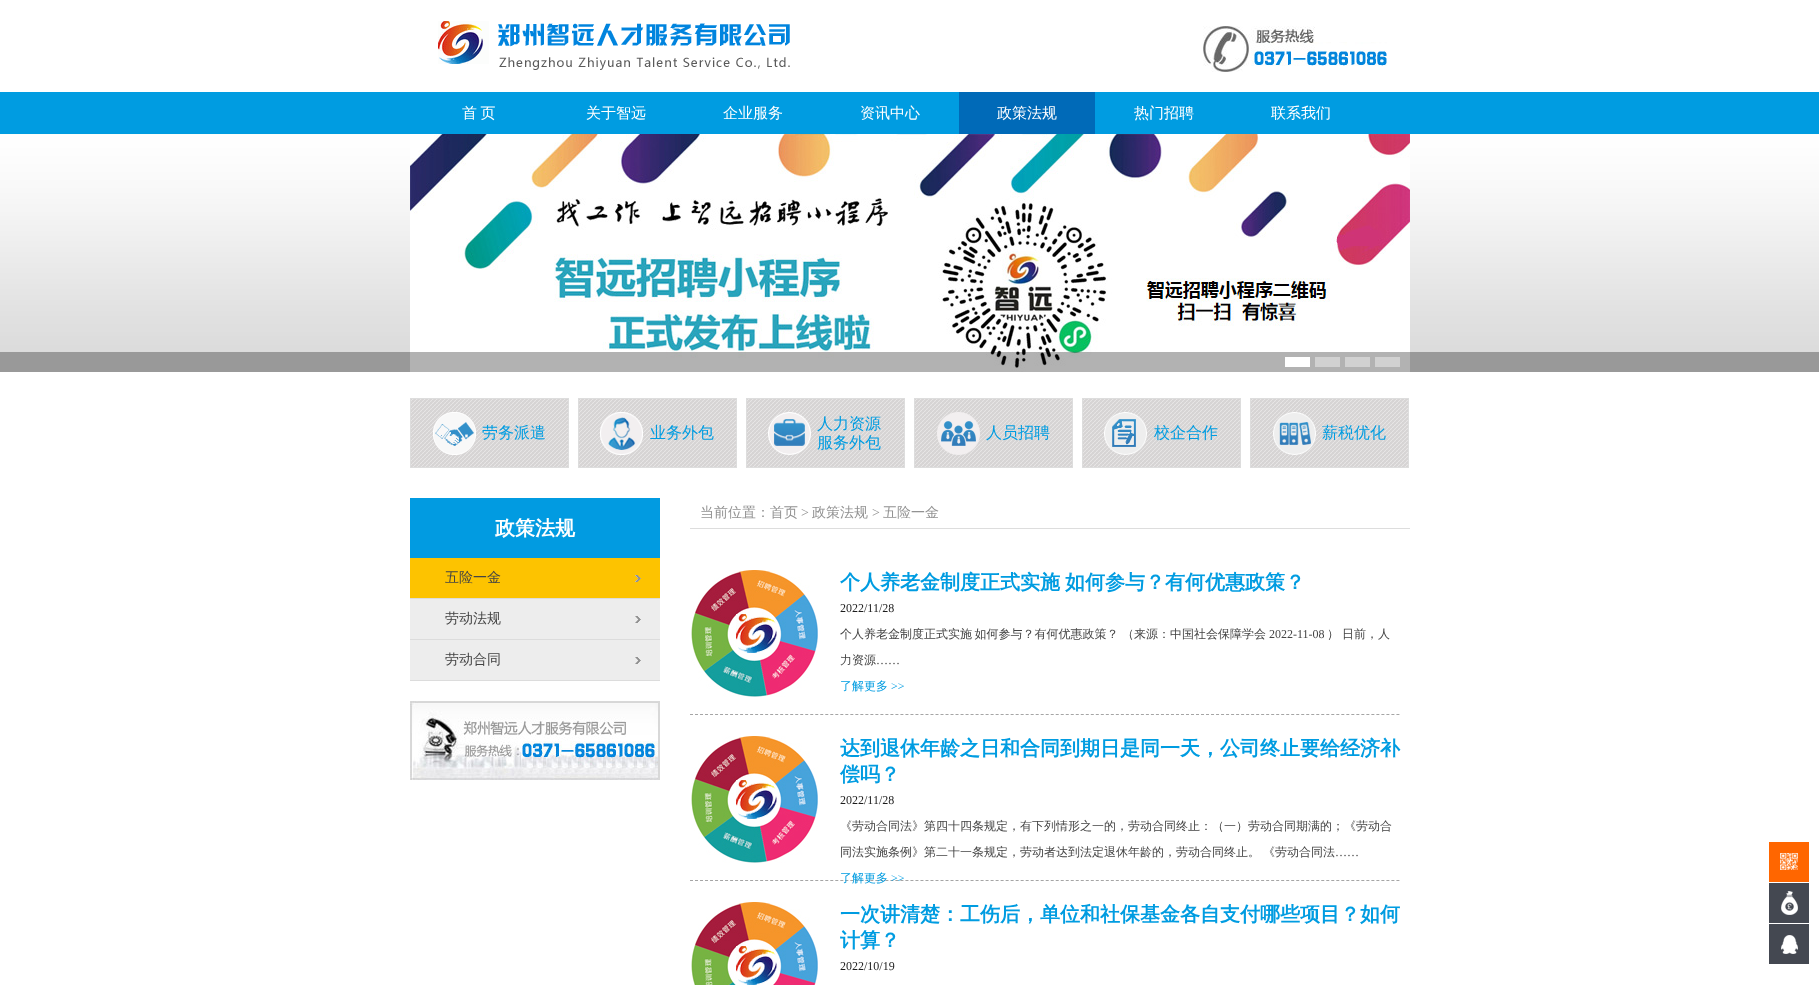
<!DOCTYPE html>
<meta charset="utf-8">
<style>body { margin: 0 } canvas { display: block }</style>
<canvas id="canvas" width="1819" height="985"></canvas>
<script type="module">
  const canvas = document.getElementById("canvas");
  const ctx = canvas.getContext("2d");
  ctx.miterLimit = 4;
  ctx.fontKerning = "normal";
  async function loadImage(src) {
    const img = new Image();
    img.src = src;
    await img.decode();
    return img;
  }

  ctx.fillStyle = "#ffffff";
  ctx.fillRect(0, 0, 1819, 985);
  ctx.drawImage(await loadImage("img1.png"), 438, 21, 352, 49);
  ctx.drawImage(await loadImage("img2.png"), 1203, 26, 184, 46);
  ctx.fillStyle = "#009ce1";
  ctx.fillRect(0, 92, 1819, 42);
  ctx.wordSpacing = "-1px";
  ctx.font = "500 15px WenQuanYi Zen Hei";
  ctx.fillStyle = "#ffffff";
  ctx.fillText("首 页", 462, 118);
  ctx.wordSpacing = "0px";
  ctx.fillText("关于智远", 586, 118);
  ctx.fillText("企业服务", 723, 118);
  ctx.fillText("资讯中心", 860, 118);
  ctx.fillStyle = "#006ab8";
  ctx.fillRect(959, 92, 136, 42);
  ctx.fillStyle = "#ffffff";
  ctx.fillText("政策法规", 997, 118);
  ctx.fillText("热门招聘", 1134, 118);
  ctx.fillText("联系我们", 1271, 118);
  ctx.drawImage(await loadImage("img3.png"), 0, 134, 1819, 238);
  ctx.drawImage(await loadImage("img4.png"), 410, 134, 1000, 238);
  ctx.fillStyle = "rgba(0, 0, 0, 0.3)";
  ctx.fillRect(410, 352, 1000, 20);
  ctx.fillStyle = "#ffffff";
  ctx.fillRect(1285, 357, 25, 10);
  ctx.fillStyle = "#d1d1d1";
  ctx.fillRect(1315, 357, 25, 10);
  ctx.fillRect(1345, 357, 25, 10);
  ctx.fillRect(1375, 357, 25, 10);
  ctx.drawImage(await loadImage("img5.png"), 411, 399, 157, 68);
  ctx.strokeStyle = "#dddddd";
  ctx.strokeRect(410.5, 398.5, 158, 69);
  ctx.font = "500 16px WenQuanYi Zen Hei";
  ctx.fillStyle = "#009ce1";
  ctx.fillText("劳务派遣", 482, 438);
  ctx.drawImage(await loadImage("img6.png"), 579, 399, 157, 68);
  ctx.strokeRect(578.5, 398.5, 158, 69);
  ctx.fillText("业务外包", 650, 438);
  ctx.drawImage(await loadImage("img7.png"), 747, 399, 157, 68);
  ctx.strokeRect(746.5, 398.5, 158, 69);
  ctx.fillText("人力资源", 817, 429);
  ctx.fillText("服务外包", 817, 448);
  ctx.drawImage(await loadImage("img8.png"), 915, 399, 157, 68);
  ctx.strokeRect(914.5, 398.5, 158, 69);
  ctx.fillText("人员招聘", 986, 438);
  ctx.drawImage(await loadImage("img9.png"), 1083, 399, 157, 68);
  ctx.strokeRect(1082.5, 398.5, 158, 69);
  ctx.fillText("校企合作", 1154, 438);
  ctx.drawImage(await loadImage("img10.png"), 1251, 399, 157, 68);
  ctx.strokeRect(1250.5, 398.5, 158, 69);
  ctx.fillText("薪税优化", 1322, 438);
  ctx.fillStyle = "#019be1";
  ctx.fillRect(410, 498, 250, 60);
  ctx.font = "bold 20px WenQuanYi Zen Hei";
  ctx.fillStyle = "#ffffff";
  ctx.fillText("政策法规", 495, 535);
  ctx.fillStyle = "#dcdcdc";
  ctx.fillRect(410, 598, 250, 1);
  ctx.fillStyle = "#fdc300";
  ctx.fillRect(410, 558, 250, 40);
  ctx.drawImage(await loadImage("img11.png"), 635, 575, 6, 7);
  ctx.font = "500 14px WenQuanYi Zen Hei";
  ctx.fillStyle = "#444444";
  ctx.fillText("五险一金", 445, 582);
  ctx.fillStyle = "#ededed";
  ctx.fillRect(410, 599, 250, 40);
  ctx.fillStyle = "#dcdcdc";
  ctx.fillRect(410, 639, 250, 1);
  ctx.drawImage(await loadImage("img12.png"), 635, 616, 6, 7);
  ctx.fillStyle = "#444444";
  ctx.fillText("劳动法规", 445, 623);
  ctx.fillStyle = "#ededed";
  ctx.fillRect(410, 640, 250, 40);
  ctx.fillStyle = "#dcdcdc";
  ctx.fillRect(410, 680, 250, 1);
  ctx.drawImage(await loadImage("img12.png"), 635, 657, 6, 7);
  ctx.fillStyle = "#444444";
  ctx.fillText("劳动合同", 445, 664);
  ctx.drawImage(await loadImage("img13.png"), 410, 701, 250, 79);
  ctx.fillStyle = "#dddddd";
  ctx.fillRect(690, 528, 720, 1);
  ctx.fillStyle = "#929292";
  ctx.fillText("当前位置：首页", 700, 517);
  ctx.font = "14px Liberation Serif";
  ctx.fillText(">", 801, 517);
  ctx.font = "500 14px WenQuanYi Zen Hei";
  ctx.fillText("政策法规", 812, 517);
  ctx.font = "14px Liberation Serif";
  ctx.fillText(">", 872, 517);
  ctx.font = "500 14px WenQuanYi Zen Hei";
  ctx.fillText("五险一金", 883, 517);
  ctx.beginPath();
  ctx.moveTo(690, 714.5);
  ctx.lineTo(1400, 714.5);
  ctx.strokeStyle = "#a5a5a5";
  ctx.setLineDash([3, 2.01]);
  ctx.stroke();
  ctx.drawImage(await loadImage("img14.png"), 691, 570, 127, 127);
  ctx.wordSpacing = "-1px";
  ctx.font = "bold 20px WenQuanYi Zen Hei";
  ctx.fillStyle = "#009ce1";
  ctx.fillText("个人养老金制度正式实施 如何参与？有何优惠政策？", 840, 589);
  ctx.wordSpacing = "0px";
  ctx.font = "12px Liberation Serif";
  ctx.fillStyle = "#1c1c1c";
  ctx.fillText("2022/11/28", 840, 612);
  ctx.wordSpacing = "-1px";
  ctx.font = "500 12px WenQuanYi Zen Hei";
  ctx.fillStyle = "#444444";
  ctx.fillText("个人养老金制度正式实施 如何参与？有何优惠政策？", 840, 638);
  ctx.wordSpacing = "0px";
  ctx.fillText("（来源：中国社会保障学会", 1122, 638);
  ctx.font = "12px Liberation Serif";
  ctx.fillText("2022-11-08", 1269, 638);
  ctx.font = "500 12px WenQuanYi Zen Hei";
  ctx.fillText("）", 1327, 638);
  ctx.fillText("日前，人", 1342, 638);
  ctx.fillText("力资源", 840, 664);
  ctx.font = "12px Liberation Serif";
  ctx.fillText("……", 876, 664);
  ctx.font = "500 12px WenQuanYi Zen Hei";
  ctx.fillStyle = "#009ce1";
  ctx.fillText("了解更多", 840, 690);
  ctx.font = "12px Liberation Serif";
  ctx.fillText(">>", 891, 690);
  ctx.beginPath();
  ctx.moveTo(690, 880.5);
  ctx.lineTo(1400, 880.5);
  ctx.stroke();
  ctx.drawImage(await loadImage("img14.png"), 691, 736, 127, 127);
  ctx.font = "bold 20px WenQuanYi Zen Hei";
  ctx.fillText("达到退休年龄之日和合同到期日是同一天，公司终止要给经济补", 840, 755);
  ctx.fillText("偿吗？", 840, 781);
  ctx.font = "12px Liberation Serif";
  ctx.fillStyle = "#1c1c1c";
  ctx.fillText("2022/11/28", 840, 804);
  ctx.font = "500 12px WenQuanYi Zen Hei";
  ctx.fillStyle = "#444444";
  ctx.fillText("《劳动合同法》第四十四条规定，有下列情形之一的，劳动合同终止：（一）劳动合同期满的；《劳动合", 840, 830);
  ctx.fillText("同法实施条例》第二十一条规定，劳动者达到法定退休年龄的，劳动合同终止。", 840, 856);
  ctx.fillText("《劳动合同法", 1263, 856);
  ctx.font = "12px Liberation Serif";
  ctx.fillText("……", 1335, 856);
  ctx.font = "500 12px WenQuanYi Zen Hei";
  ctx.fillStyle = "#009ce1";
  ctx.fillText("了解更多", 840, 882);
  ctx.font = "12px Liberation Serif";
  ctx.fillText(">>", 891, 882);
  ctx.drawImage(await loadImage("img15.png"), 691, 902, 127, 83);
  ctx.font = "bold 20px WenQuanYi Zen Hei";
  ctx.fillText("一次讲清楚：工伤后，单位和社保基金各自支付哪些项目？如何", 840, 921);
  ctx.fillText("计算？", 840, 947);
  ctx.font = "12px Liberation Serif";
  ctx.fillStyle = "#1c1c1c";
  ctx.fillText("2022/10/19", 840, 970);
  ctx.drawImage(await loadImage("img16.png"), 1769, 842, 40, 40);
  ctx.drawImage(await loadImage("img17.png"), 1769, 883, 40, 40);
  ctx.drawImage(await loadImage("img18.png"), 1769, 924, 40, 40);
</script>
